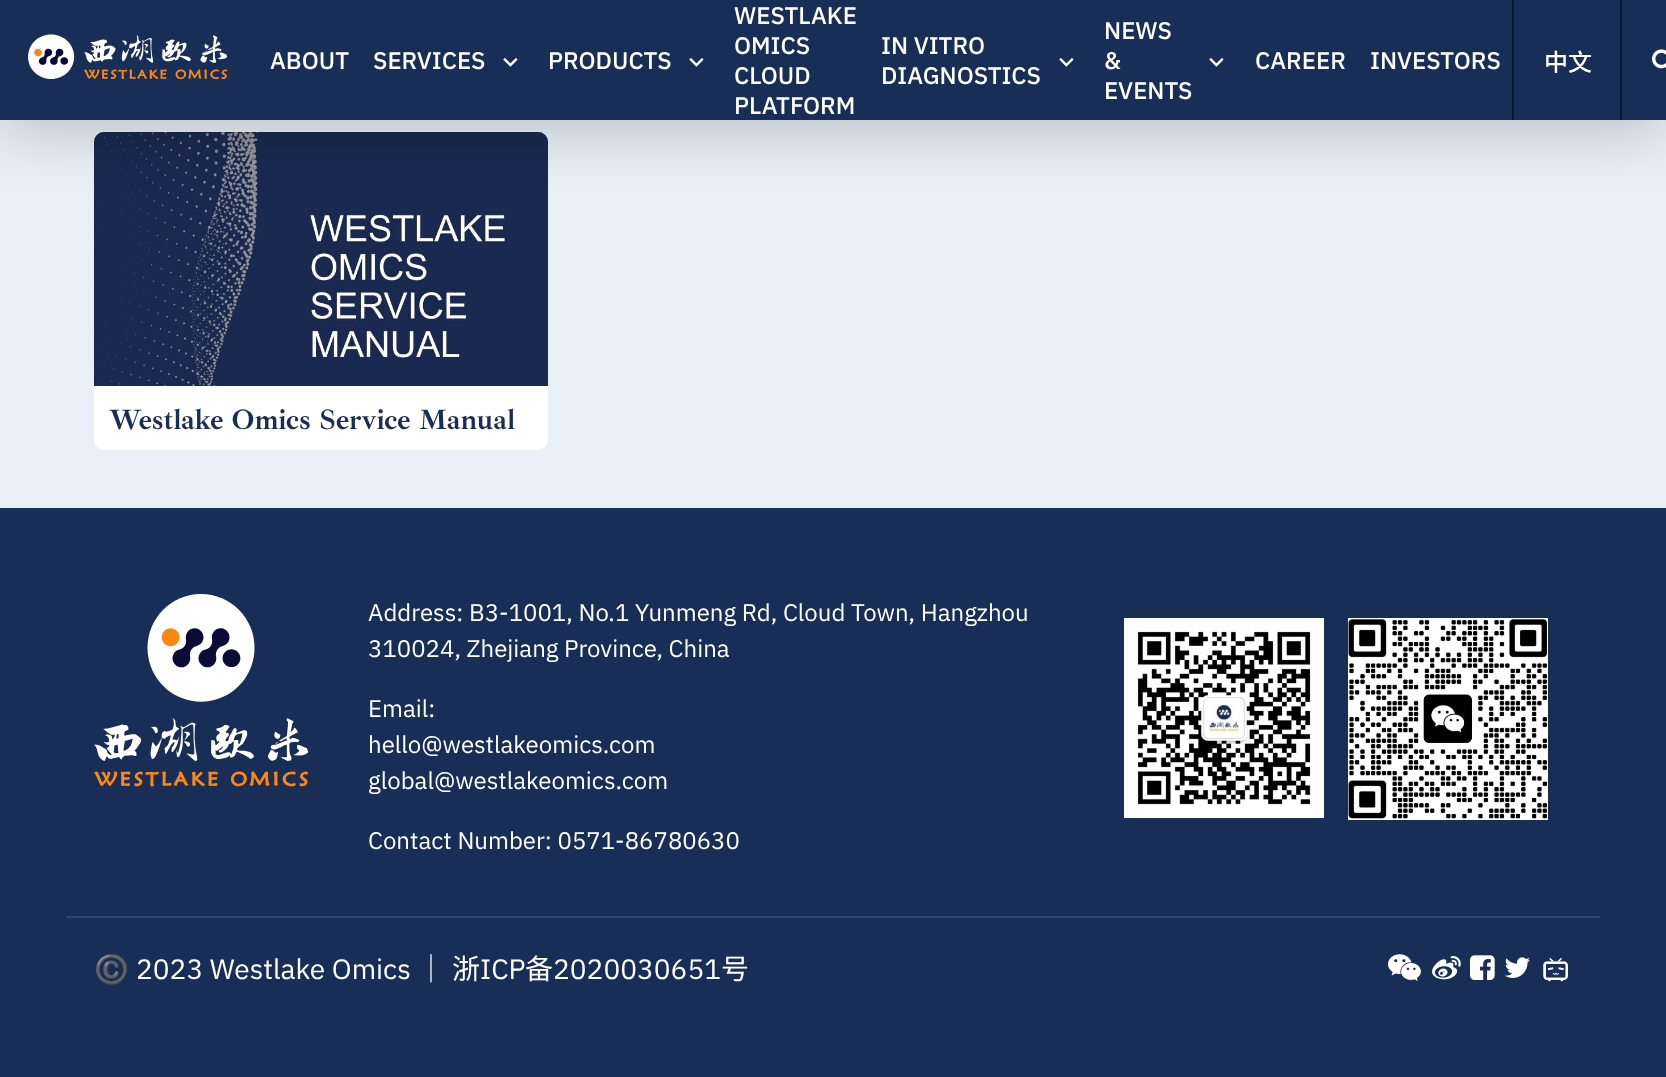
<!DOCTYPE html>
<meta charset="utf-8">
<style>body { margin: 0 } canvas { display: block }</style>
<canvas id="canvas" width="1666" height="1077"></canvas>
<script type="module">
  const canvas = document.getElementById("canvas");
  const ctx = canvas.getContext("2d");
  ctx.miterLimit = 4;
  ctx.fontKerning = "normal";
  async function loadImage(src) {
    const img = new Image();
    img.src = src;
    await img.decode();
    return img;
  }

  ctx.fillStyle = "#e8eff6";
  ctx.fillRect(0, 0, 1666, 1077);
  ctx.fillStyle = "#ffffff";
  ctx.beginPath();
  ctx.roundRect(94, 132, 454, 318, 10);
  ctx.fill();
  ctx.drawImage(await loadImage("img4.png"), 94, 132, 454, 10);
  ctx.drawImage(await loadImage("img5.png"), 94, 132, 454, 254);
  ctx.fillStyle = "rgba(0, 0, 0, 0.2)";
  ctx.filter = "blur(30px)";
  ctx.beginPath();
  ctx.rect(0, 10, 1666, 120);
  ctx.fill();
  ctx.filter = "none";
  ctx.fillStyle = "#192e57";
  ctx.fillRect(0, 0, 1666, 120);
  ctx.drawImage(await loadImage("img1.png"), 28, 34, 200, 45);
  ctx.font = "500 24px IBM Plex Sans";
  ctx.fillStyle = "#ffffff";
  ctx.fillText("ABOUT", 270, 69);
  ctx.fillText("SERVICES", 373, 69);
  ctx.drawImage(await loadImage("img2.png"), 503, 58, 15, 9);
  ctx.fillText("PRODUCTS", 548, 69);
  ctx.drawImage(await loadImage("img2.png"), 689, 58, 15, 9);
  ctx.fillText("WESTLAKE", 734, 24);
  ctx.fillText("OMICS", 734, 54);
  ctx.fillText("CLOUD", 734, 84);
  ctx.fillText("PLATFORM", 734, 114);
  ctx.fillText("IN VITRO", 881, 54);
  ctx.drawImage(await loadImage("img2.png"), 1059, 58, 15, 9);
  ctx.fillText("DIAGNOSTICS", 881, 84);
  ctx.fillText("NEWS", 1104, 39);
  ctx.fillText("&", 1104, 69);
  ctx.drawImage(await loadImage("img2.png"), 1209, 58, 15, 9);
  ctx.fillText("EVENTS", 1104, 99);
  ctx.fillText("CAREER", 1255, 69);
  ctx.fillText("INVESTORS", 1370, 69);
  ctx.fillStyle = "#0d172c";
  ctx.fillRect(1512, 0, 2, 120);
  ctx.font = "500 24px Noto Sans SC";
  ctx.fillStyle = "#ffffff";
  ctx.fillText("中文", 1544, 71);
  ctx.fillStyle = "#0d172c";
  ctx.fillRect(1620, 0, 2, 120);
  ctx.drawImage(await loadImage("img3.png"), 1652, 49, 14, 20);
  ctx.font = "bold 28.75px Ibarra Real Nova";
  ctx.fillStyle = "#192e57";
  ctx.fillText("Westlake Omics Service Manual", 109, 429);
  ctx.fillRect(0, 508, 1666, 569);
  ctx.drawImage(await loadImage("img6.png"), 94, 594, 215, 193);
  ctx.font = "24px IBM Plex Sans";
  ctx.fillStyle = "#ffffff";
  ctx.fillText("Address: B3-1001, No.1 Yunmeng Rd, Cloud Town, Hangzhou", 368, 621);
  ctx.fillText("310024, Zhejiang Province, China", 368, 657);
  ctx.fillText("Email:", 368, 717);
  ctx.fillText("hello@westlakeomics.com", 368, 753);
  ctx.fillText("global@westlakeomics.com", 368, 789);
  ctx.fillText("Contact Number: 0571-86780630", 368, 849);
  ctx.drawImage(await loadImage("img7.png"), 1124, 618, 200, 200);
  ctx.drawImage(await loadImage("img8.png"), 1348, 618, 200, 202);
  ctx.fillStyle = "#304368";
  ctx.fillRect(66, 916, 1534, 2);
  ctx.font = "28px Noto Color Emoji";
  ctx.fillStyle = "#ffffff";
  ctx.fillText("©️", 94, 979);
  ctx.font = "28px IBM Plex Sans";
  ctx.fillText("2023 Westlake Omics", 136, 979);
  ctx.font = "28px Noto Sans SC";
  ctx.fillText("｜", 417, 979);
  ctx.fillText("浙", 452, 979);
  ctx.font = "28px IBM Plex Sans";
  ctx.fillText("ICP", 480, 979);
  ctx.font = "28px Noto Sans SC";
  ctx.fillText("备", 525, 979);
  ctx.font = "28px IBM Plex Sans";
  ctx.fillText("2020030651", 553, 979);
  ctx.font = "28px Noto Sans SC";
  ctx.fillText("号", 721, 979);
  ctx.drawImage(await loadImage("img9.png"), 1388, 954, 33, 27);
  ctx.drawImage(await loadImage("img10.png"), 1432, 956, 29, 24);
  ctx.drawImage(await loadImage("img11.png"), 1470, 955, 25, 25);
  ctx.drawImage(await loadImage("img12.png"), 1504, 957, 26, 21);
  ctx.drawImage(await loadImage("img13.png"), 1543, 958, 25, 24);
</script>
